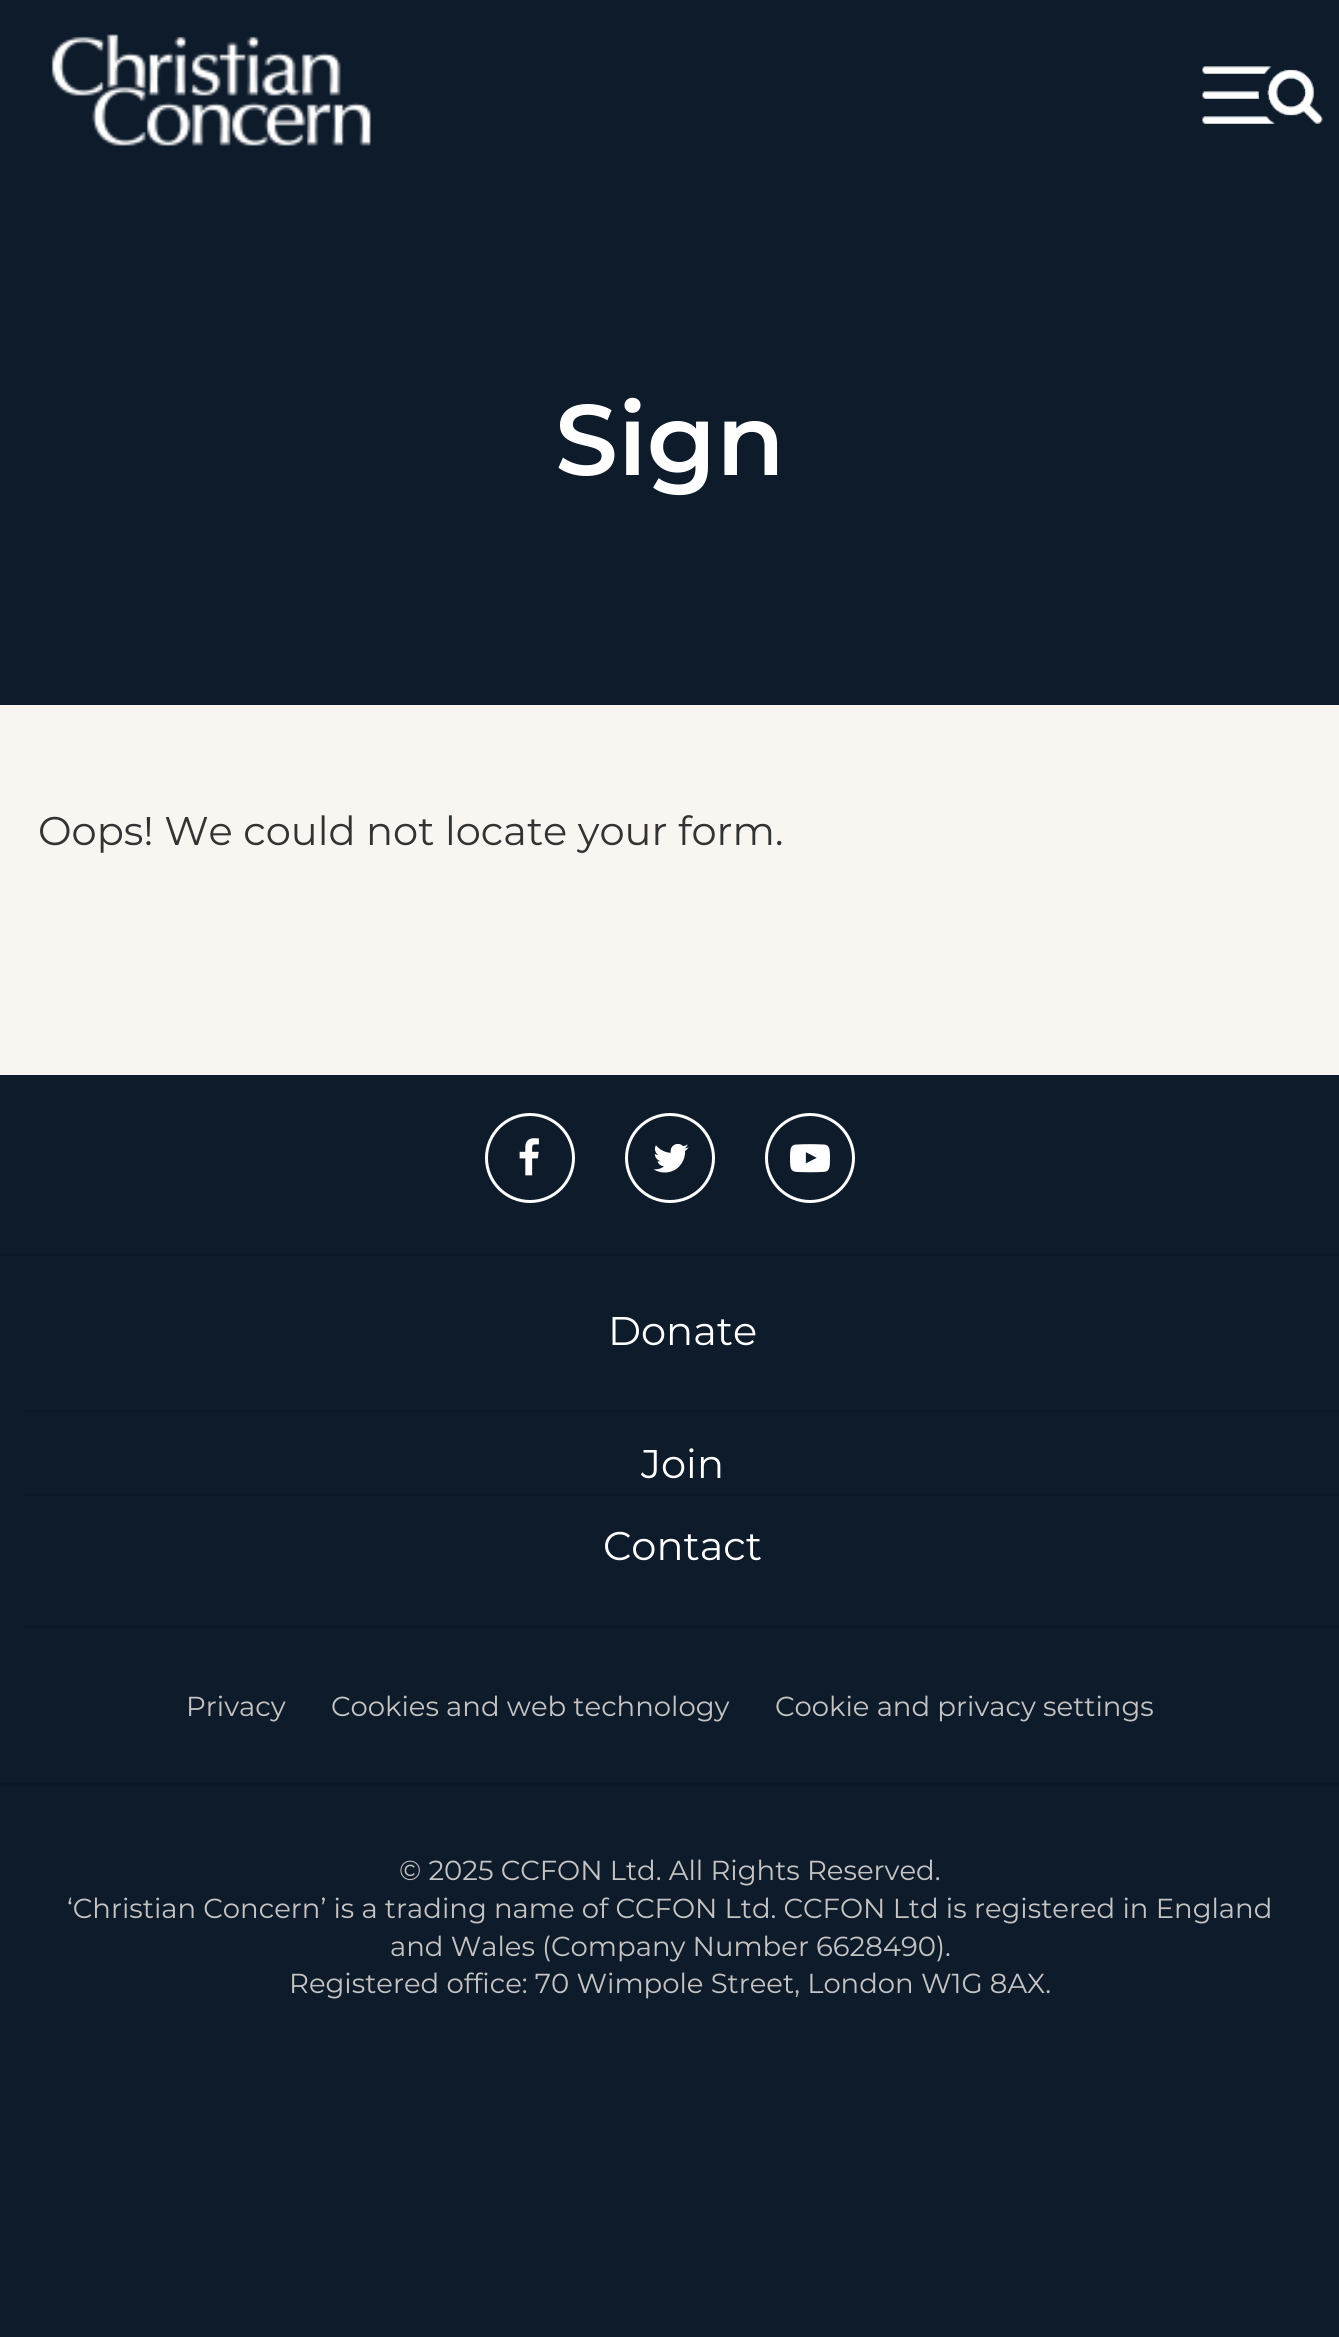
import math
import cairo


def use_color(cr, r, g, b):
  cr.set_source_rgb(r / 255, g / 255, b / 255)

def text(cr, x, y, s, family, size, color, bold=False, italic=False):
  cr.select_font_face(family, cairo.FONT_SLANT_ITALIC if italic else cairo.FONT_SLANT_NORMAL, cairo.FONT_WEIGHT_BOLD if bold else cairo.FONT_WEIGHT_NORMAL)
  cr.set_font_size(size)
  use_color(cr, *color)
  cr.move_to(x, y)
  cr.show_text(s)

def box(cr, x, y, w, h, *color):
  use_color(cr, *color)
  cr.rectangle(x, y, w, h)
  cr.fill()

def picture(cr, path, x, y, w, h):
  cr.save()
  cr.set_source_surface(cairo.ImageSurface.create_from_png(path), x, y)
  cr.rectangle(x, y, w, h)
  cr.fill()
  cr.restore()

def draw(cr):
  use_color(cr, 14, 27, 43)
  cr.paint()
  picture(cr, "img_01.png", 51, 34, 320, 112)
  picture(cr, "img_02.png", 1202, 66, 121, 58)
  box(cr, 0, 705, 1339, 370, 249, 245, 241)
  box(cr, 0, 1253, 1339, 3, 13, 24, 39)
  cr.arc(530, 1158, 43.5, 0, 2 * math.pi)
  use_color(cr, 255, 255, 255)
  cr.set_line_width(3)
  cr.stroke()
  picture(cr, "img_03.png", 519, 1138, 20, 38)
  cr.arc(670, 1158, 43.5, 0, 2 * math.pi)
  cr.stroke()
  picture(cr, "img_04.png", 653, 1143, 36, 30)
  cr.arc(810, 1158, 43.5, 0, 2 * math.pi)
  cr.stroke()
  picture(cr, "img_05.png", 790, 1144, 40, 29)
  box(cr, 25, 1410, 1314, 3, 13, 24, 39)
  box(cr, 25, 1493, 1314, 3, 13, 24, 39)
  box(cr, 25, 1625, 1314, 3, 13, 24, 39)
  box(cr, 0, 1783, 1339, 3, 13, 24, 39)
  text(cr, 555, 475, "Sign", "Montserrat SemiBold", 100, (255, 255, 255))
  text(cr, 38, 845, "Oops! We could not locate your form.", "Montserrat", 40, (51, 51, 51))
  text(cr, 608, 1345, "Donate", "Montserrat", 40, (255, 255, 255))
  text(cr, 641, 1478, "Join", "Montserrat", 40, (255, 255, 255))
  text(cr, 603, 1560, "Contact", "Montserrat", 40, (255, 255, 255))
  text(cr, 186, 1716, "Privacy", "Montserrat", 27.5, (197, 196, 195))
  text(cr, 331, 1716, "Cookies and web technology", "Montserrat", 27.5, (197, 196, 195))
  text(cr, 775, 1716, "Cookie and privacy settings", "Montserrat", 27.5, (197, 196, 195))
  text(cr, 399, 1880, "© 2025 CCFON Ltd. All Rights Reserved.", "Montserrat", 27.5, (197, 196, 195))
  text(cr, 67, 1918, "‘Christian Concern’ is a trading name of CCFON Ltd. CCFON Ltd is registered in England", "Montserrat", 27.5, (197, 196, 195))
  text(cr, 390, 1956, "and Wales (Company Number 6628490).", "Montserrat", 27.5, (197, 196, 195))
  text(cr, 289, 1993, "Registered office: 70 Wimpole Street, London W1G 8AX.", "Montserrat", 27.5, (197, 196, 195))


surface = cairo.ImageSurface(cairo.FORMAT_RGB24, 1339, 2337)
cr = cairo.Context(surface)
options = cairo.FontOptions()
options.set_hint_metrics(cairo.HINT_METRICS_OFF)
options.set_hint_style(cairo.HINT_STYLE_NONE)
cr.set_font_options(options)
cr.set_miter_limit(4)
draw(cr)
surface.write_to_png("out.png")
